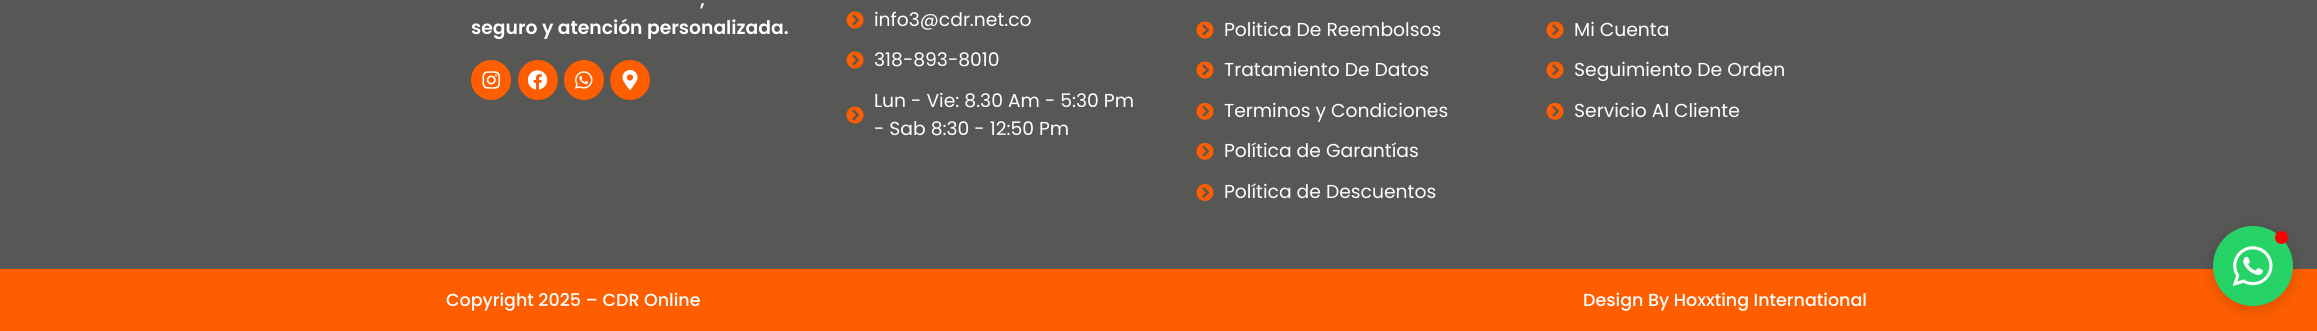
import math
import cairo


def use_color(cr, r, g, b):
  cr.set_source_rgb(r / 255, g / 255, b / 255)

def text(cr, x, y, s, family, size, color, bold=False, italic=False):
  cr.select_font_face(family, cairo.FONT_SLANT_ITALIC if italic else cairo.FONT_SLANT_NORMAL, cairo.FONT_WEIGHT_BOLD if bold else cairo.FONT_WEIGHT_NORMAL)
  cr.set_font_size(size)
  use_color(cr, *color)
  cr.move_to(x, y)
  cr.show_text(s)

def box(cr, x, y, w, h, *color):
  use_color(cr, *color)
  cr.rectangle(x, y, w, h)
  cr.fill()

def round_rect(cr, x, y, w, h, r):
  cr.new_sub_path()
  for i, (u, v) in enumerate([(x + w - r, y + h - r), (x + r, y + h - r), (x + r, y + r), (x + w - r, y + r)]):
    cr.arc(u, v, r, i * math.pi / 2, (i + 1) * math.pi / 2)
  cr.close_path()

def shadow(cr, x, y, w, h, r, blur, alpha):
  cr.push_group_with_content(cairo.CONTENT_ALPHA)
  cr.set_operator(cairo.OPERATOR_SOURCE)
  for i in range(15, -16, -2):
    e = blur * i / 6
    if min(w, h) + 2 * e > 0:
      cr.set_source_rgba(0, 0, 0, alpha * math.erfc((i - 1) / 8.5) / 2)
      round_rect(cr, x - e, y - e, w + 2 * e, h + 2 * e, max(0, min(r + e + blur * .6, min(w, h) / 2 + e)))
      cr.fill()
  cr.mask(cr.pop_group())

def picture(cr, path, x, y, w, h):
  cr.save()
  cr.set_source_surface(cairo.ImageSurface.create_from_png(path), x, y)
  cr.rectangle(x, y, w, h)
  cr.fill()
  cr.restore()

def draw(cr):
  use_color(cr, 87, 87, 86)
  cr.paint()
  use_color(cr, 255, 94, 0)
  cr.arc(491, 80, 20, 0, 2 * math.pi)
  cr.fill()
  picture(cr, "img_01.png", 482, 71, 18, 18)
  cr.arc(538, 80, 20, 0, 2 * math.pi)
  cr.fill()
  picture(cr, "img_02.png", 528, 70, 20, 20)
  cr.arc(584, 80, 20, 0, 2 * math.pi)
  cr.fill()
  picture(cr, "img_03.png", 575, 71, 18, 18)
  cr.arc(630, 80, 20, 0, 2 * math.pi)
  cr.fill()
  picture(cr, "img_04.png", 622, 70, 16, 20)
  picture(cr, "img_05.png", 846, 11, 18, 18)
  picture(cr, "img_05.png", 846, 51, 18, 18)
  picture(cr, "img_05.png", 846, 106, 18, 18)
  picture(cr, "img_05.png", 1196, 21, 18, 18)
  picture(cr, "img_05.png", 1196, 61, 18, 18)
  picture(cr, "img_06.png", 1196, 103, 18, 17)
  picture(cr, "img_06.png", 1196, 143, 18, 17)
  picture(cr, "img_07.png", 1196, 184, 18, 17)
  picture(cr, "img_05.png", 1546, 21, 18, 18)
  picture(cr, "img_05.png", 1546, 61, 18, 18)
  picture(cr, "img_06.png", 1546, 103, 18, 17)
  box(cr, 0, 269, 2317, 62, 255, 94, 0)
  use_color(cr, 0, 0, 0)
  shadow(cr, 2213, 230, 80, 80, 40, 7.5, 0.15)
  use_color(cr, 37, 211, 102)
  cr.arc(2253, 266, 40, 0, 2 * math.pi)
  cr.fill()
  use_color(cr, 255, 0, 0)
  cr.arc(2281.5, 237.5, 6.5, 0, 2 * math.pi)
  cr.fill()
  picture(cr, "img_08.png", 2233, 246, 40, 40)
  text(cr, 700, 6, ",", "Poppins SemiBold", 18.75, (255, 255, 255))
  text(cr, 471, 34, "seguro y atención personalizada.", "Poppins SemiBold", 18.75, (255, 255, 255))
  text(cr, 874, 26, "info3@cdr.net.co", "Poppins", 18.75, (255, 255, 255))
  text(cr, 874, 66, "318-893-8010", "Poppins", 18.75, (255, 255, 255))
  text(cr, 874, 107, "Lun - Vie: 8.30 Am - 5:30 Pm", "Poppins", 18.75, (255, 255, 255))
  text(cr, 874, 135, "- Sab 8:30 - 12:50 Pm", "Poppins", 18.75, (255, 255, 255))
  text(cr, 1224, 36, "Politica De Reembolsos", "Poppins", 18.75, (255, 255, 255))
  text(cr, 1224, 76, "Tratamiento De Datos", "Poppins", 18.75, (255, 255, 255))
  text(cr, 1224, 117, "Terminos y Condiciones", "Poppins", 18.75, (255, 255, 255))
  text(cr, 1224, 157, "Política de Garantías", "Poppins", 18.75, (255, 255, 255))
  text(cr, 1224, 198, "Política de Descuentos", "Poppins", 18.75, (255, 255, 255))
  text(cr, 1574, 36, "Mi Cuenta", "Poppins", 18.75, (255, 255, 255))
  text(cr, 1574, 76, "Seguimiento De Orden", "Poppins", 18.75, (255, 255, 255))
  text(cr, 1574, 117, "Servicio Al Cliente", "Poppins", 18.75, (255, 255, 255))
  text(cr, 446, 306, "Copyright 2025 – CDR Online", "Poppins Medium", 17.5, (255, 255, 255))
  text(cr, 1583, 306, "Design By Hoxxting International", "Poppins Medium", 17.5, (255, 255, 255))


surface = cairo.ImageSurface(cairo.FORMAT_RGB24, 2317, 331)
cr = cairo.Context(surface)
options = cairo.FontOptions()
options.set_hint_metrics(cairo.HINT_METRICS_OFF)
options.set_hint_style(cairo.HINT_STYLE_NONE)
cr.set_font_options(options)
cr.set_miter_limit(4)
draw(cr)
surface.write_to_png("out.png")
